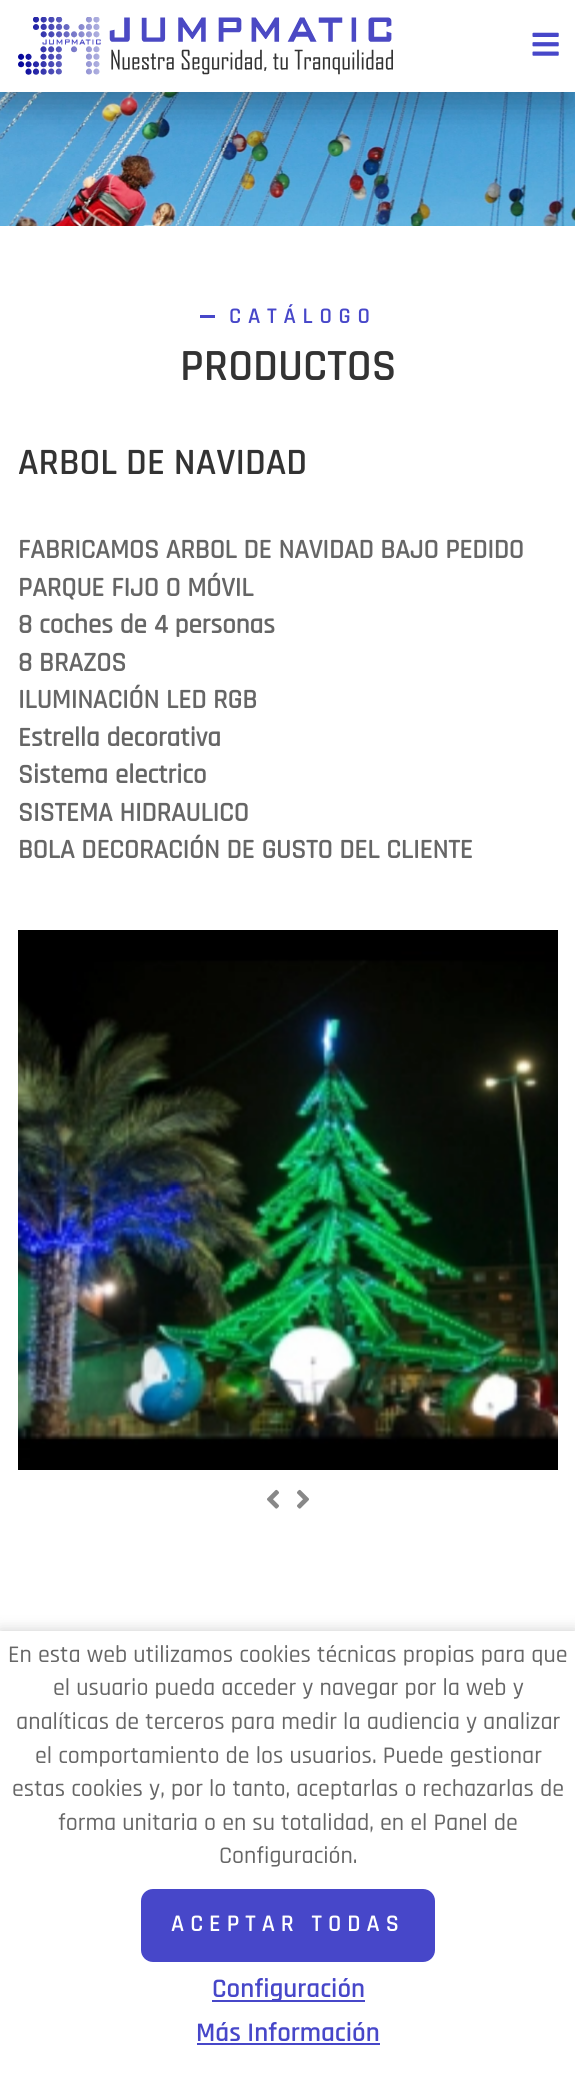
import math
import cairo


def use_color(cr, r, g, b):
  cr.set_source_rgb(r / 255, g / 255, b / 255)

def text(cr, x, y, s, family, size, color, bold=False, italic=False):
  cr.select_font_face(family, cairo.FONT_SLANT_ITALIC if italic else cairo.FONT_SLANT_NORMAL, cairo.FONT_WEIGHT_BOLD if bold else cairo.FONT_WEIGHT_NORMAL)
  cr.set_font_size(size)
  use_color(cr, *color)
  cr.move_to(x, y)
  cr.show_text(s)

def spaced_text(cr, x, y, s, letter, word):
  cr.move_to(x, y)
  for ch in s:
    cr.show_text(ch)
    cr.rel_move_to(letter + word * (ch == ' '), 0)

def box(cr, x, y, w, h, *color):
  use_color(cr, *color)
  cr.rectangle(x, y, w, h)
  cr.fill()

def round_rect(cr, x, y, w, h, r):
  cr.new_sub_path()
  for i, (u, v) in enumerate([(x + w - r, y + h - r), (x + r, y + h - r), (x + r, y + r), (x + w - r, y + r)]):
    cr.arc(u, v, r, i * math.pi / 2, (i + 1) * math.pi / 2)
  cr.close_path()

def shadow(cr, x, y, w, h, r, blur, alpha):
  cr.push_group_with_content(cairo.CONTENT_ALPHA)
  cr.set_operator(cairo.OPERATOR_SOURCE)
  for i in range(15, -16, -2):
    e = blur * i / 6
    if min(w, h) + 2 * e > 0:
      cr.set_source_rgba(0, 0, 0, alpha * math.erfc((i - 1) / 8.5) / 2)
      round_rect(cr, x - e, y - e, w + 2 * e, h + 2 * e, max(0, min(r + e + blur * .6, min(w, h) / 2 + e)))
      cr.fill()
  cr.mask(cr.pop_group())

def picture(cr, path, x, y, w, h):
  cr.save()
  cr.set_source_surface(cairo.ImageSurface.create_from_png(path), x, y)
  cr.rectangle(x, y, w, h)
  cr.fill()
  cr.restore()

def draw(cr):
  use_color(cr, 255, 255, 255)
  cr.paint()
  picture(cr, "img_03.png", 0, 92, 575, 134)
  use_color(cr, 0, 0, 0)
  shadow(cr, 0, 15, 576, 92, 0, 15, 0.25)
  box(cr, 0, 0, 575, 92, 255, 255, 255)
  picture(cr, "img_01.png", 18, 17, 375, 58)
  picture(cr, "img_02.png", 532, 32, 27, 24)
  box(cr, 200, 315, 15, 3, 71, 71, 201)
  picture(cr, "img_04.png", 18, 930, 540, 540)
  picture(cr, "img_05.png", 267, 1489, 12, 20)
  picture(cr, "img_06.png", 297, 1489, 12, 20)
  use_color(cr, 0, 0, 0)
  shadow(cr, 0, 1631, 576, 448, 0, 7.5, 0.2)
  box(cr, 0, 1631, 575, 447, 255, 255, 255)
  use_color(cr, 71, 71, 201)
  round_rect(cr, 141, 1889, 294, 73, 12)
  cr.fill()
  box(cr, 212, 2000, 153, 2, 71, 71, 201)
  box(cr, 197, 2043, 183, 2, 71, 71, 201)
  cr.select_font_face("Rajdhani SemiBold")
  cr.set_font_size(22.5)
  spaced_text(cr, 229, 323, "CATÁLOGO", 6.75, 0)
  text(cr, 180, 380, "PRODUCTOS", "Rajdhani SemiBold", 45, (51, 51, 51))
  text(cr, 18, 474, "ARBOL DE NAVIDAD", "Rajdhani SemiBold", 37.5, (51, 51, 51))
  text(cr, 18, 558, "FABRICAMOS ARBOL DE NAVIDAD BAJO PEDIDO", "Rajdhani", 27, (102, 102, 102), bold=True)
  text(cr, 18, 596, "PARQUE FIJO O MÓVIL", "Rajdhani", 27, (102, 102, 102), bold=True)
  text(cr, 18, 633, "8 coches de 4 personas", "Rajdhani", 27, (102, 102, 102), bold=True)
  text(cr, 18, 671, "8 BRAZOS", "Rajdhani", 27, (102, 102, 102), bold=True)
  text(cr, 18, 708, "ILUMINACIÓN LED RGB", "Rajdhani", 27, (102, 102, 102), bold=True)
  text(cr, 18, 746, "Estrella decorativa", "Rajdhani", 27, (102, 102, 102), bold=True)
  text(cr, 18, 783, "Sistema electrico", "Rajdhani", 27, (102, 102, 102), bold=True)
  text(cr, 18, 821, "SISTEMA HIDRAULICO", "Rajdhani", 27, (102, 102, 102), bold=True)
  text(cr, 18, 858, "BOLA DECORACIÓN DE GUSTO DEL CLIENTE", "Rajdhani", 27, (102, 102, 102), bold=True)
  text(cr, 8, 1662, "En esta web utilizamos cookies técnicas propias para que", "Rajdhani Medium", 24, (102, 102, 102))
  text(cr, 53, 1695, "el usuario pueda acceder y navegar por la web y", "Rajdhani Medium", 24, (102, 102, 102))
  text(cr, 16, 1729, "analíticas de terceros para medir la audiencia y analizar", "Rajdhani Medium", 24, (102, 102, 102))
  text(cr, 35, 1763, "el comportamiento de los usuarios. Puede gestionar", "Rajdhani Medium", 24, (102, 102, 102))
  text(cr, 12, 1796, "estas cookies y, por lo tanto, aceptarlas o rechazarlas de", "Rajdhani Medium", 24, (102, 102, 102))
  text(cr, 58, 1830, "forma unitaria o en su totalidad, en el Panel de", "Rajdhani Medium", 24, (102, 102, 102))
  text(cr, 219, 1863, "Configuración.", "Rajdhani Medium", 24, (102, 102, 102))
  cr.select_font_face("Rajdhani SemiBold")
  use_color(cr, 255, 255, 255)
  spaced_text(cr, 171, 1931, "ACEPTAR TODAS", 6, 0)
  text(cr, 212, 1997, "Configuración", "Rajdhani SemiBold", 27, (71, 71, 201))
  text(cr, 196, 2041, "Más Información", "Rajdhani SemiBold", 27, (71, 71, 201))


surface = cairo.ImageSurface(cairo.FORMAT_RGB24, 575, 2078)
cr = cairo.Context(surface)
options = cairo.FontOptions()
options.set_hint_metrics(cairo.HINT_METRICS_OFF)
options.set_hint_style(cairo.HINT_STYLE_NONE)
cr.set_font_options(options)
cr.set_miter_limit(4)
draw(cr)
surface.write_to_png("out.png")
